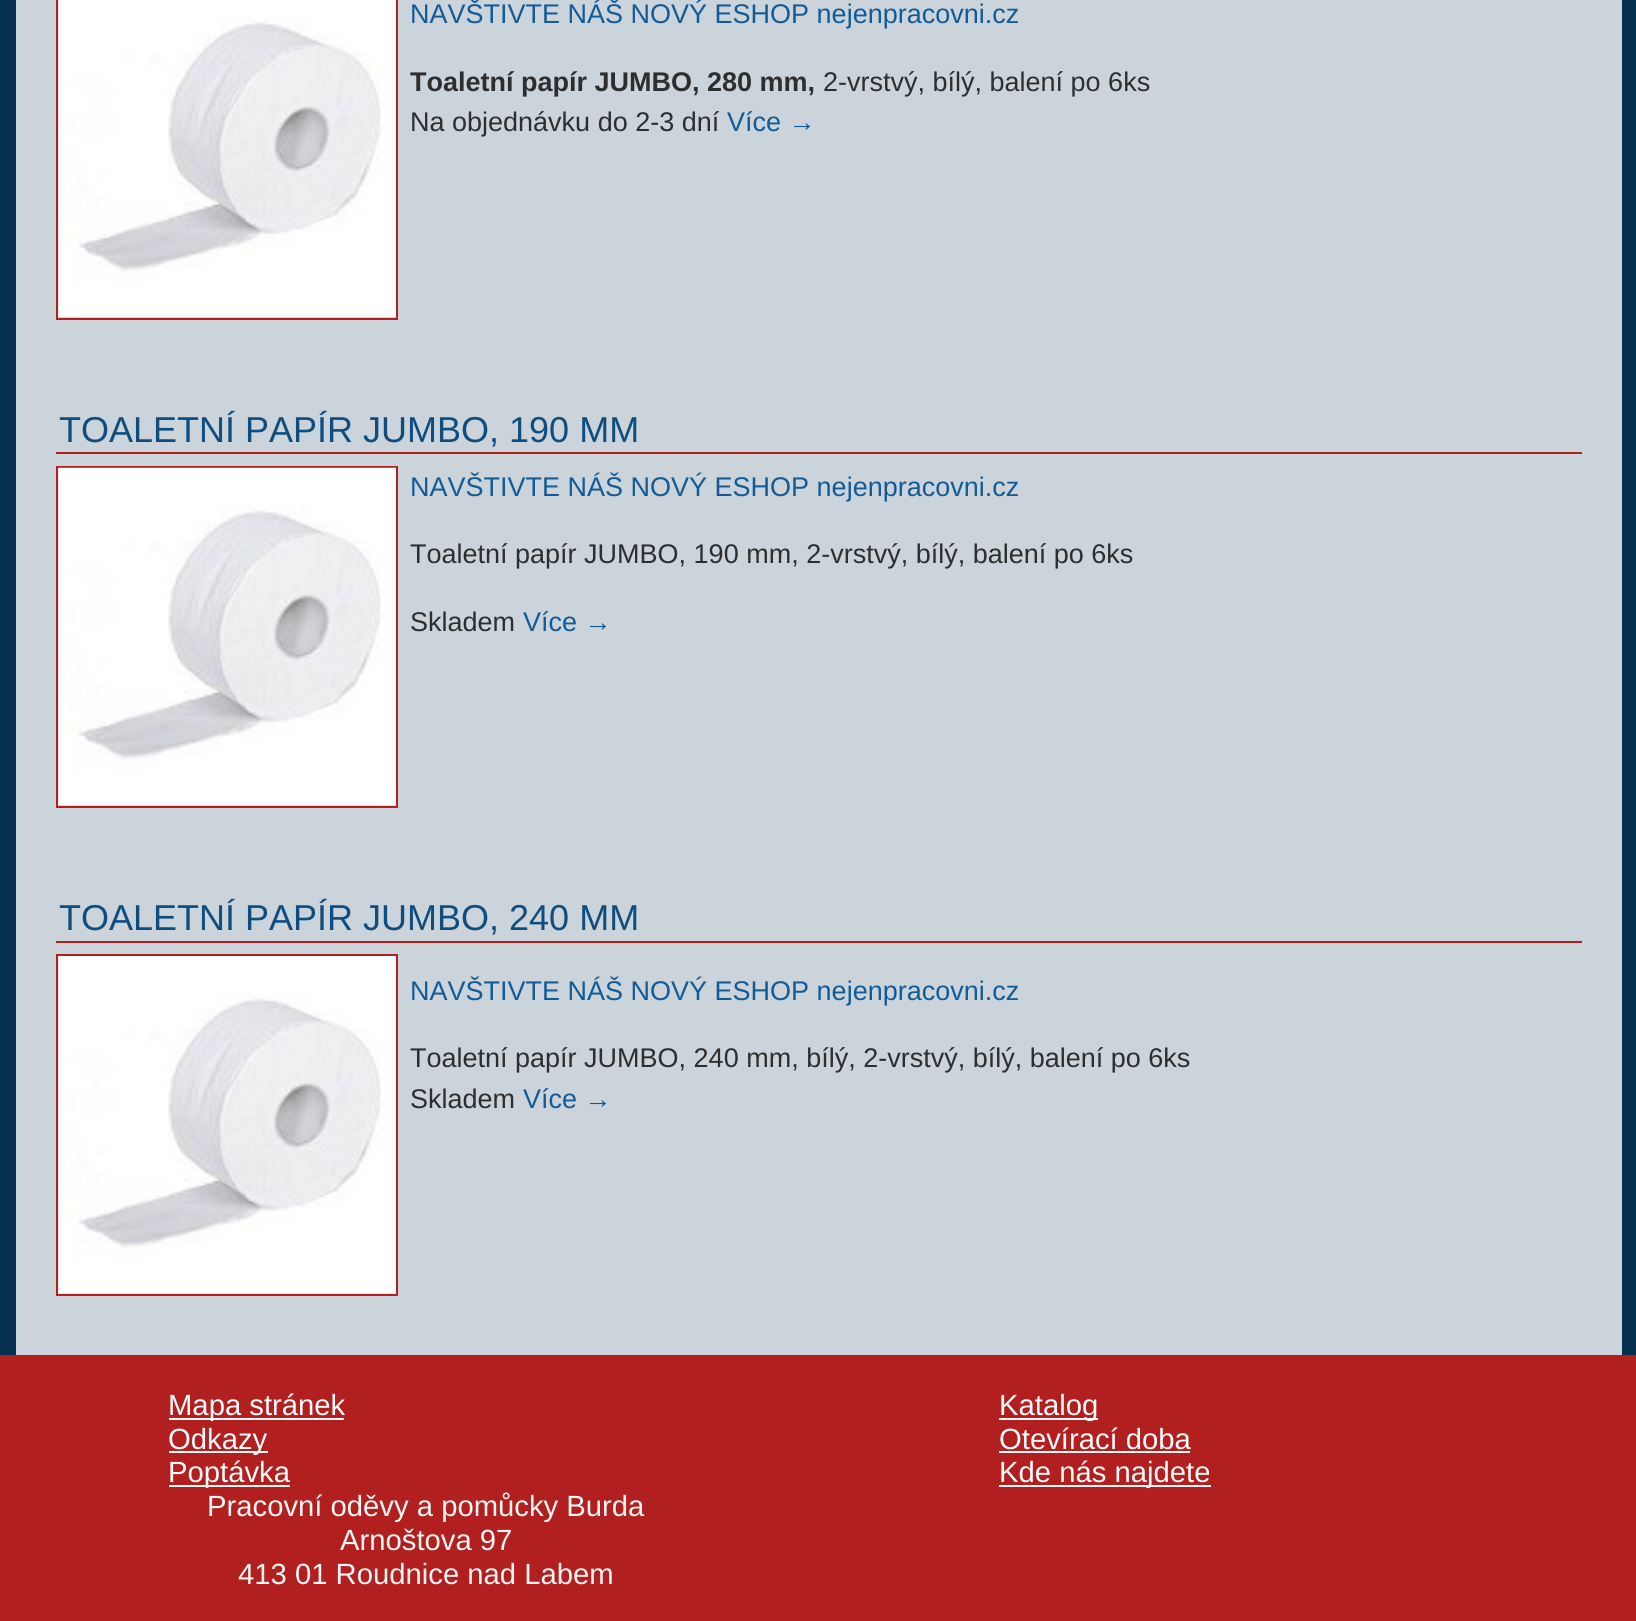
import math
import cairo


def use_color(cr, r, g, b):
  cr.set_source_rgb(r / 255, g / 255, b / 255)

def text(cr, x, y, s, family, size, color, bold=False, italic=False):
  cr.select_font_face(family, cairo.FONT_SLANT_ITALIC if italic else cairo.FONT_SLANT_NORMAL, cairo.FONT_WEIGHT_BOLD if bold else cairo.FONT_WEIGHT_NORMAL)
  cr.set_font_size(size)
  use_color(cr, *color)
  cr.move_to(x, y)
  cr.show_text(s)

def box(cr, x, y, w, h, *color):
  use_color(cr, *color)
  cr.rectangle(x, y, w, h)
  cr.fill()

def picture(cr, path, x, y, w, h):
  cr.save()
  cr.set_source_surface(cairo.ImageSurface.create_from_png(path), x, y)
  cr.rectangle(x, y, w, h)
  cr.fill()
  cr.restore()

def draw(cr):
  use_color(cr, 4, 48, 78)
  cr.paint()
  cr.set_source_rgba(0.988, 0.988, 0.988, 0.8)
  cr.rectangle(16, 0, 1606, 1355)
  cr.fill()
  cr.rectangle(57, -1, 340, 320)
  use_color(cr, 178, 31, 31)
  cr.stroke()
  picture(cr, "img_01.png", 58, 0, 338, 317)
  box(cr, 56, 452, 1526, 2, 178, 31, 31)
  cr.rectangle(57, 467, 340, 340)
  cr.stroke()
  picture(cr, "img_02.png", 58, 467, 338, 339)
  box(cr, 56, 941, 1526, 2, 178, 31, 31)
  cr.rectangle(57, 955, 340, 340)
  cr.stroke()
  picture(cr, "img_03.png", 58, 956, 338, 338)
  box(cr, 0, 1355, 1636, 266, 178, 31, 31)
  box(cr, 169, 1418, 175, 2, 248, 250, 251)
  box(cr, 169, 1451, 99, 2, 248, 250, 251)
  box(cr, 169, 1485, 121, 2, 248, 250, 251)
  box(cr, 999, 1418, 99, 2, 248, 250, 251)
  box(cr, 999, 1451, 191, 2, 248, 250, 251)
  box(cr, 999, 1485, 212, 2, 248, 250, 251)
  text(cr, 410, 23, "NAVŠTIVTE NÁŠ NOVÝ ESHOP nejenpracovni.cz", "Liberation Sans", 27, (19, 91, 150))
  text(cr, 410, 91, "Toaletní papír JUMBO, 280 mm,", "Liberation Sans", 27, (46, 46, 46), bold=True)
  text(cr, 823, 91, "2-vrstvý, bílý, balení po 6ks", "Liberation Sans", 27, (46, 46, 46))
  text(cr, 410, 131, "Na objednávku do 2-3 dní", "Liberation Sans", 27, (46, 46, 46))
  text(cr, 727, 131, "Více →", "Liberation Sans", 27, (19, 91, 150))
  text(cr, 59, 442, "TOALETNÍ PAPÍR JUMBO, 190 MM", "Liberation Sans", 36, (16, 77, 127))
  text(cr, 410, 496, "NAVŠTIVTE NÁŠ NOVÝ ESHOP nejenpracovni.cz", "Liberation Sans", 27, (19, 91, 150))
  text(cr, 410, 563, "Toaletní papír JUMBO, 190 mm, 2-vrstvý, bílý, balení po 6ks", "Liberation Sans", 27, (46, 46, 46))
  text(cr, 410, 631, "Skladem", "Liberation Sans", 27, (46, 46, 46))
  text(cr, 523, 631, "Více →", "Liberation Sans", 27, (19, 91, 150))
  text(cr, 59, 930, "TOALETNÍ PAPÍR JUMBO, 240 MM", "Liberation Sans", 36, (16, 77, 127))
  text(cr, 410, 1000, "NAVŠTIVTE NÁŠ NOVÝ ESHOP nejenpracovni.cz", "Liberation Sans", 27, (19, 91, 150))
  text(cr, 410, 1067, "Toaletní papír JUMBO, 240 mm, bílý, 2-vrstvý, bílý, balení po 6ks", "Liberation Sans", 27, (46, 46, 46))
  text(cr, 410, 1108, "Skladem", "Liberation Sans", 27, (46, 46, 46))
  text(cr, 523, 1108, "Více →", "Liberation Sans", 27, (19, 91, 150))
  text(cr, 168, 1415, "Mapa stránek", "Liberation Sans", 29.25, (248, 250, 251))
  text(cr, 168, 1449, "Odkazy", "Liberation Sans", 29.25, (248, 250, 251))
  text(cr, 168, 1482, "Poptávka", "Liberation Sans", 29.25, (248, 250, 251))
  text(cr, 999, 1415, "Katalog", "Liberation Sans", 29.25, (248, 250, 251))
  text(cr, 999, 1449, "Otevírací doba", "Liberation Sans", 29.25, (248, 250, 251))
  text(cr, 999, 1482, "Kde nás najdete", "Liberation Sans", 29.25, (248, 250, 251))
  text(cr, 207, 1516, "Pracovní oděvy a pomůcky Burda", "Liberation Sans", 29.25, (245, 245, 245))
  text(cr, 340, 1550, "Arnoštova 97", "Liberation Sans", 29.25, (245, 245, 245))
  text(cr, 238, 1584, "413 01 Roudnice nad Labem", "Liberation Sans", 29.25, (245, 245, 245))


surface = cairo.ImageSurface(cairo.FORMAT_RGB24, 1636, 1621)
cr = cairo.Context(surface)
options = cairo.FontOptions()
options.set_hint_metrics(cairo.HINT_METRICS_OFF)
options.set_hint_style(cairo.HINT_STYLE_NONE)
cr.set_font_options(options)
cr.set_miter_limit(4)
draw(cr)
surface.write_to_png("out.png")
